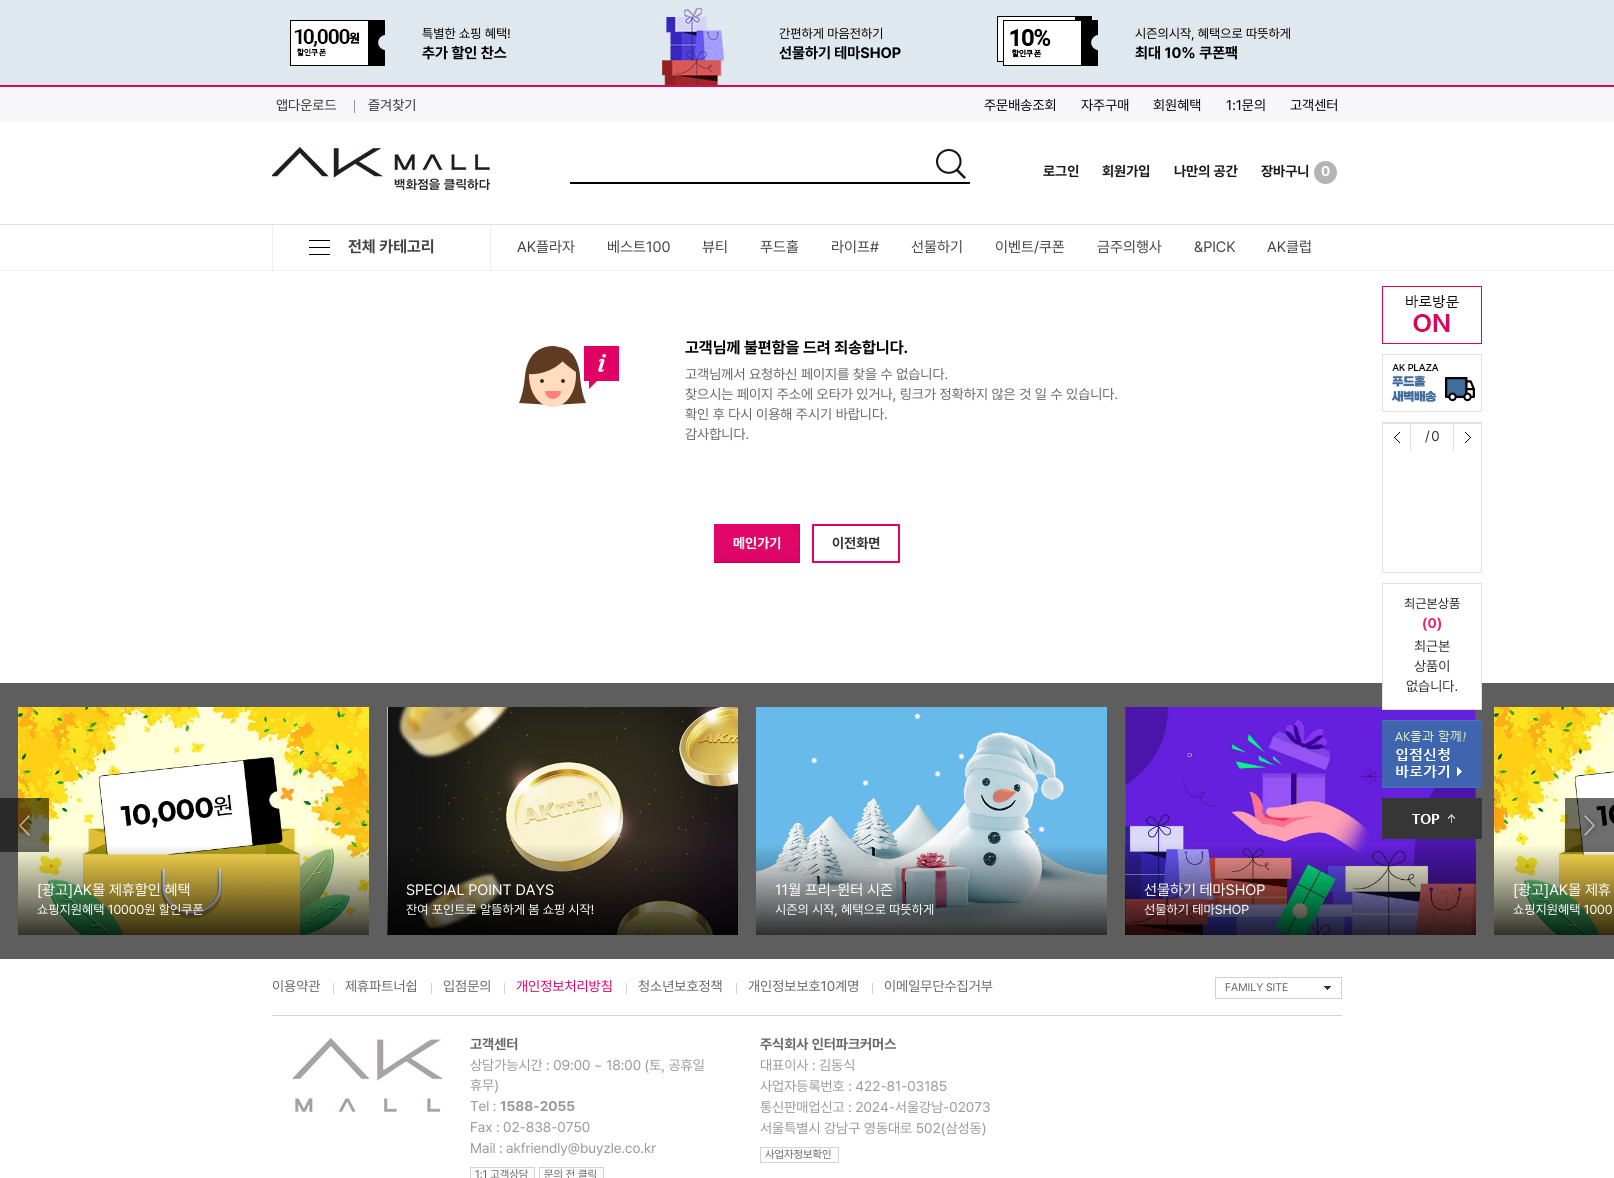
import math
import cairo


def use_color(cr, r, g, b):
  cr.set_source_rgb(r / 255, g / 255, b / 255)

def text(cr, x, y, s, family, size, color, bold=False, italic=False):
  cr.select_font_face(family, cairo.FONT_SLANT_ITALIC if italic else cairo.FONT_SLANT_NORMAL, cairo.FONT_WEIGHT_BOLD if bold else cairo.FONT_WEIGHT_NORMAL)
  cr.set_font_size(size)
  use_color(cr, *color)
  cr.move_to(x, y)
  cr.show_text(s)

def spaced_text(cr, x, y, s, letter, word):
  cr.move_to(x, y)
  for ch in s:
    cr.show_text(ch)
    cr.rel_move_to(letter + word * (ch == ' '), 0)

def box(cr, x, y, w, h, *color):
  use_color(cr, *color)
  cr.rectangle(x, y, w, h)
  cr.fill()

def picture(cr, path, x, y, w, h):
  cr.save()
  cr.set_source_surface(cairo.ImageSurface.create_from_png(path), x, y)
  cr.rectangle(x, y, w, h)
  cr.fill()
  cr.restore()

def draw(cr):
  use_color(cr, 255, 255, 255)
  cr.paint()
  box(cr, 0, 270, 1614, 1, 238, 238, 238)
  box(cr, 0, 0, 1614, 85, 224, 232, 239)
  picture(cr, "img_01.png", 288, 16, 104, 56)
  picture(cr, "img_02.png", 661, 8, 64, 77)
  picture(cr, "img_03.png", 993, 16, 112, 56)
  box(cr, 0, 87, 1614, 35, 247, 247, 249)
  box(cr, 0, 85, 1614, 2, 222, 4, 91)
  box(cr, 354, 100, 1, 13, 149, 149, 150)
  picture(cr, "img_04.png", 272, 147, 218, 43)
  box(cr, 570, 182, 400, 2, 0, 0, 0)
  picture(cr, "img_05.png", 936, 149, 30, 30)
  use_color(cr, 180, 180, 180)
  cr.arc(1325.5, 172.5, 11.5, 0, 2 * math.pi)
  cr.fill()
  box(cr, 0, 224, 1614, 1, 224, 225, 229)
  box(cr, 490, 225, 1, 45, 238, 238, 238)
  box(cr, 272, 225, 1, 45, 238, 238, 238)
  picture(cr, "img_06.png", 309, 240, 21, 15)
  picture(cr, "img_07.png", 519, 346, 100, 61)
  picture(cr, "img_08.png", 715, 525, 84, 37)
  box(cr, 714, 524, 86, 1, 226, 3, 103)
  box(cr, 799, 524, 1, 39, 198, 5, 93)
  box(cr, 714, 562, 86, 1, 183, 2, 84)
  box(cr, 714, 524, 1, 39, 226, 3, 103)
  cr.rectangle(813, 525, 86, 37)
  use_color(cr, 226, 1, 102)
  cr.stroke()
  picture(cr, "img_09.png", 1382, 286, 100, 58)
  picture(cr, "img_10.png", 1382, 354, 100, 58)
  cr.rectangle(1382.5, 422.5, 99, 150)
  use_color(cr, 223, 223, 223)
  cr.set_line_width(1)
  cr.stroke()
  box(cr, 1383, 423, 98, 1, 223, 223, 223)
  box(cr, 1453, 424, 1, 27, 223, 223, 223)
  box(cr, 1410, 424, 1, 27, 223, 223, 223)
  picture(cr, "img_11.png", 1394, 432, 6, 11)
  picture(cr, "img_12.png", 1465, 432, 6, 11)
  box(cr, 0, 683, 1614, 276, 94, 94, 94)
  picture(cr, "img_20.png", 1125, 707, 351, 228)
  box(cr, 1383, 683, 98, 26, 255, 255, 255)
  cr.rectangle(1382.5, 583.5, 99, 126)
  use_color(cr, 224, 224, 224)
  cr.stroke()
  picture(cr, "img_13.png", 1382, 720, 100, 68)
  picture(cr, "img_14.png", 1382, 798, 100, 41)
  picture(cr, "img_17.png", 18, 707, 351, 228)
  cr.set_source_rgba(0, 0, 0, 0.57)
  cr.rectangle(0, 798, 49, 54)
  cr.fill()
  picture(cr, "img_15.png", 18, 814, 14, 23)
  picture(cr, "img_21.png", 1494, 707, 120, 228)
  cr.rectangle(1565, 798, 49, 54)
  cr.fill()
  picture(cr, "img_16.png", 1582, 814, 16, 23)
  picture(cr, "img_18.png", 387, 707, 351, 228)
  picture(cr, "img_19.png", 756, 707, 351, 228)
  box(cr, 333, 983, 1, 11, 210, 210, 210)
  box(cr, 431, 983, 1, 11, 210, 210, 210)
  box(cr, 504, 983, 1, 11, 210, 210, 210)
  box(cr, 626, 983, 1, 11, 210, 210, 210)
  box(cr, 736, 983, 1, 11, 210, 210, 210)
  box(cr, 872, 983, 1, 11, 210, 210, 210)
  cr.rectangle(1215.5, 977.5, 126, 21)
  cr.stroke()
  picture(cr, "img_22.png", 1324, 986, 7, 4)
  box(cr, 272, 1015, 1070, 1, 210, 210, 210)
  picture(cr, "img_23.png", 291, 1037, 152, 75)
  use_color(cr, 252, 252, 252)
  cr.rectangle(470.5, 1167.5, 64, 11)
  cr.fill_preserve()
  use_color(cr, 210, 210, 210)
  cr.stroke()
  use_color(cr, 252, 252, 252)
  cr.rectangle(539.5, 1167.5, 64, 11)
  cr.fill_preserve()
  use_color(cr, 210, 210, 210)
  cr.stroke()
  use_color(cr, 252, 252, 252)
  cr.rectangle(760.5, 1147.5, 78, 15)
  cr.fill_preserve()
  use_color(cr, 210, 210, 210)
  cr.stroke()
  text(cr, 422, 38, "특별한 쇼핑 혜택!", "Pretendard", 13, (0, 0, 0))
  text(cr, 422, 58, "추가 할인 찬스", "Pretendard", 15, (0, 0, 0), bold=True)
  text(cr, 779, 38, "간편하게 마음전하기", "Pretendard", 13, (0, 0, 0))
  text(cr, 779, 58, "선물하기 테마SHOP", "Pretendard", 15, (0, 0, 0), bold=True)
  text(cr, 1135, 38, "시즌의시작, 혜택으로 따뜻하게", "Pretendard", 13, (0, 0, 0))
  text(cr, 1135, 58, "최대 10% 쿠폰팩", "Pretendard", 15, (0, 0, 0), bold=True)
  text(cr, 276, 110, "앱다운로드", "Pretendard", 14, (51, 51, 51))
  text(cr, 368, 110, "즐겨찾기", "Pretendard", 14, (51, 51, 51))
  text(cr, 984, 110, "주문배송조회", "Pretendard", 14, (0, 0, 0))
  text(cr, 1081, 110, "자주구매", "Pretendard", 14, (0, 0, 0))
  text(cr, 1153, 110, "회원혜택", "Pretendard", 14, (0, 0, 0))
  text(cr, 1226, 110, "1:1문의", "Pretendard", 14, (0, 0, 0))
  text(cr, 1290, 110, "고객센터", "Pretendard", 14, (0, 0, 0))
  text(cr, 1043, 176, "로그인", "Pretendard", 14, (25, 25, 25), bold=True)
  text(cr, 1102, 176, "회원가입", "Pretendard", 14, (25, 25, 25), bold=True)
  text(cr, 1174, 176, "나만의 공간", "Pretendard", 14, (25, 25, 25), bold=True)
  text(cr, 1261, 176, "장바구니", "Pretendard", 14, (25, 25, 25), bold=True)
  text(cr, 1321, 176, "0", "Pretendard", 14, (255, 255, 255), bold=True)
  text(cr, 348, 252, "전체 카테고리", "Pretendard", 16, (68, 68, 68), bold=True)
  text(cr, 517, 252, "AK플라자", "Pretendard", 15, (68, 68, 68))
  text(cr, 607, 252, "베스트100", "Pretendard", 15, (68, 68, 68))
  text(cr, 702, 252, "뷰티", "Pretendard", 15, (68, 68, 68))
  text(cr, 760, 252, "푸드홀", "Pretendard", 15, (68, 68, 68))
  text(cr, 831, 252, "라이프#", "Pretendard", 15, (68, 68, 68))
  text(cr, 911, 252, "선물하기", "Pretendard", 15, (68, 68, 68))
  text(cr, 995, 252, "이벤트/쿠폰", "Pretendard", 15, (68, 68, 68))
  text(cr, 1097, 252, "금주의행사", "Pretendard", 15, (68, 68, 68))
  text(cr, 1194, 252, "&PICK", "Pretendard", 15, (68, 68, 68))
  text(cr, 1267, 252, "AK클럽", "Pretendard", 15, (68, 68, 68))
  text(cr, 685, 353, "고객님께 불편함을 드려 죄송합니다.", "Pretendard", 16, (0, 0, 0), bold=True)
  text(cr, 685, 379, "고객님께서 요청하신 페이지를 찾을 수 없습니다.", "Pretendard", 14, (102, 102, 102))
  text(cr, 685, 399, "찾으시는 페이지 주소에 오타가 있거나, 링크가 정확하지 않은 것 일 수 있습니다.", "Pretendard", 14, (102, 102, 102))
  text(cr, 685, 419, "확인 후 다시 이용해 주시기 바랍니다.", "Pretendard", 14, (102, 102, 102))
  text(cr, 685, 439, "감사합니다.", "Pretendard", 14, (102, 102, 102))
  text(cr, 733, 548, "메인가기", "Pretendard", 14, (255, 255, 255), bold=True)
  text(cr, 832, 548, "이전화면", "Pretendard", 14, (51, 51, 51), bold=True)
  cr.select_font_face("Pretendard")
  spaced_text(cr, 1425, 441, "/ 0", -1, 0)
  text(cr, 1404, 608, "최근본상품", "Pretendard", 13, (38, 38, 38))
  text(cr, 1422, 628, "(0)", "Pretendard", 14, (232, 39, 116), bold=True)
  text(cr, 1414, 651, "최근본", "Pretendard", 14, (51, 51, 51))
  text(cr, 1414, 671, "상품이", "Pretendard", 14, (51, 51, 51))
  text(cr, 1406, 691, "없습니다.", "Pretendard", 14, (51, 51, 51))
  text(cr, 37, 895, "[광고]AK몰 제휴할인 혜택", "Pretendard", 15, (255, 255, 255))
  text(cr, 37, 914, "쇼핑지원혜택 10000원 할인쿠폰", "Pretendard", 13, (255, 255, 255))
  text(cr, 406, 895, "SPECIAL POINT DAYS", "Pretendard", 15, (255, 255, 255))
  text(cr, 406, 914, "잔여 포인트로 알뜰하게 봄 쇼핑 시작!", "Pretendard", 13, (255, 255, 255))
  text(cr, 775, 895, "11월 프리-윈터 시즌", "Pretendard", 15, (255, 255, 255))
  text(cr, 775, 914, "시즌의 시작, 혜택으로 따뜻하게", "Pretendard", 13, (255, 255, 255))
  text(cr, 1144, 895, "선물하기 테마SHOP", "Pretendard", 15, (255, 255, 255))
  text(cr, 1144, 914, "선물하기 테마SHOP", "Pretendard", 13, (255, 255, 255))
  text(cr, 1513, 895, "[광고]AK몰 제휴", "Pretendard", 15, (255, 255, 255))
  text(cr, 1513, 914, "쇼핑지원혜택 1000", "Pretendard", 13, (255, 255, 255))
  text(cr, 272, 991, "이용약관", "Pretendard", 14, (102, 102, 102))
  text(cr, 345, 991, "제휴파트너쉽", "Pretendard", 14, (102, 102, 102))
  text(cr, 443, 991, "입점문의", "Pretendard", 14, (102, 102, 102))
  text(cr, 516, 991, "개인정보처리방침", "Pretendard", 14, (226, 1, 103))
  text(cr, 638, 991, "청소년보호정책", "Pretendard", 14, (102, 102, 102))
  text(cr, 748, 991, "개인정보보호10계명", "Pretendard", 14, (102, 102, 102))
  text(cr, 884, 991, "이메일무단수집거부", "Pretendard", 14, (102, 102, 102))
  text(cr, 1225, 991, "FAMILY SITE", "Pretendard", 11, (102, 102, 102))
  text(cr, 470, 1049, "고객센터", "Pretendard", 14, (102, 102, 102), bold=True)
  text(cr, 470, 1070, "상담가능시간 : 09:00 ~ 18:00 (토, 공휴일", "Pretendard", 14, (153, 153, 153))
  text(cr, 470, 1090, "휴무)", "Pretendard", 14, (153, 153, 153))
  text(cr, 470, 1111, "Tel :", "Pretendard", 14, (153, 153, 153))
  text(cr, 500, 1111, "1588-2055", "Pretendard", 14, (153, 153, 153), bold=True)
  text(cr, 470, 1132, "Fax : 02-838-0750", "Pretendard", 14, (153, 153, 153))
  text(cr, 470, 1153, "Mail : akfriendly@buyzle.co.kr", "Pretendard", 14, (153, 153, 153))
  text(cr, 475, 1178, "1:1 고객상담", "Pretendard", 11, (102, 102, 102))
  text(cr, 544, 1178, "문의 전 클릭", "Pretendard", 11, (102, 102, 102))
  text(cr, 760, 1049, "주식회사 인터파크커머스", "Pretendard", 14, (102, 102, 102), bold=True)
  text(cr, 760, 1070, "대표이사 : 김동식", "Pretendard", 14, (153, 153, 153))
  text(cr, 760, 1091, "사업자등록번호 : 422-81-03185", "Pretendard", 14, (153, 153, 153))
  text(cr, 760, 1112, "통신판매업신고 : 2024-서울강남-02073", "Pretendard", 14, (153, 153, 153))
  text(cr, 760, 1133, "서울특별시 강남구 영동대로 502(삼성동)", "Pretendard", 14, (153, 153, 153))
  text(cr, 765, 1158, "사업자정보확인", "Pretendard", 11, (102, 102, 102))


surface = cairo.ImageSurface(cairo.FORMAT_RGB24, 1614, 1178)
cr = cairo.Context(surface)
options = cairo.FontOptions()
options.set_hint_metrics(cairo.HINT_METRICS_OFF)
options.set_hint_style(cairo.HINT_STYLE_NONE)
cr.set_font_options(options)
cr.set_miter_limit(4)
draw(cr)
surface.write_to_png("out.png")
